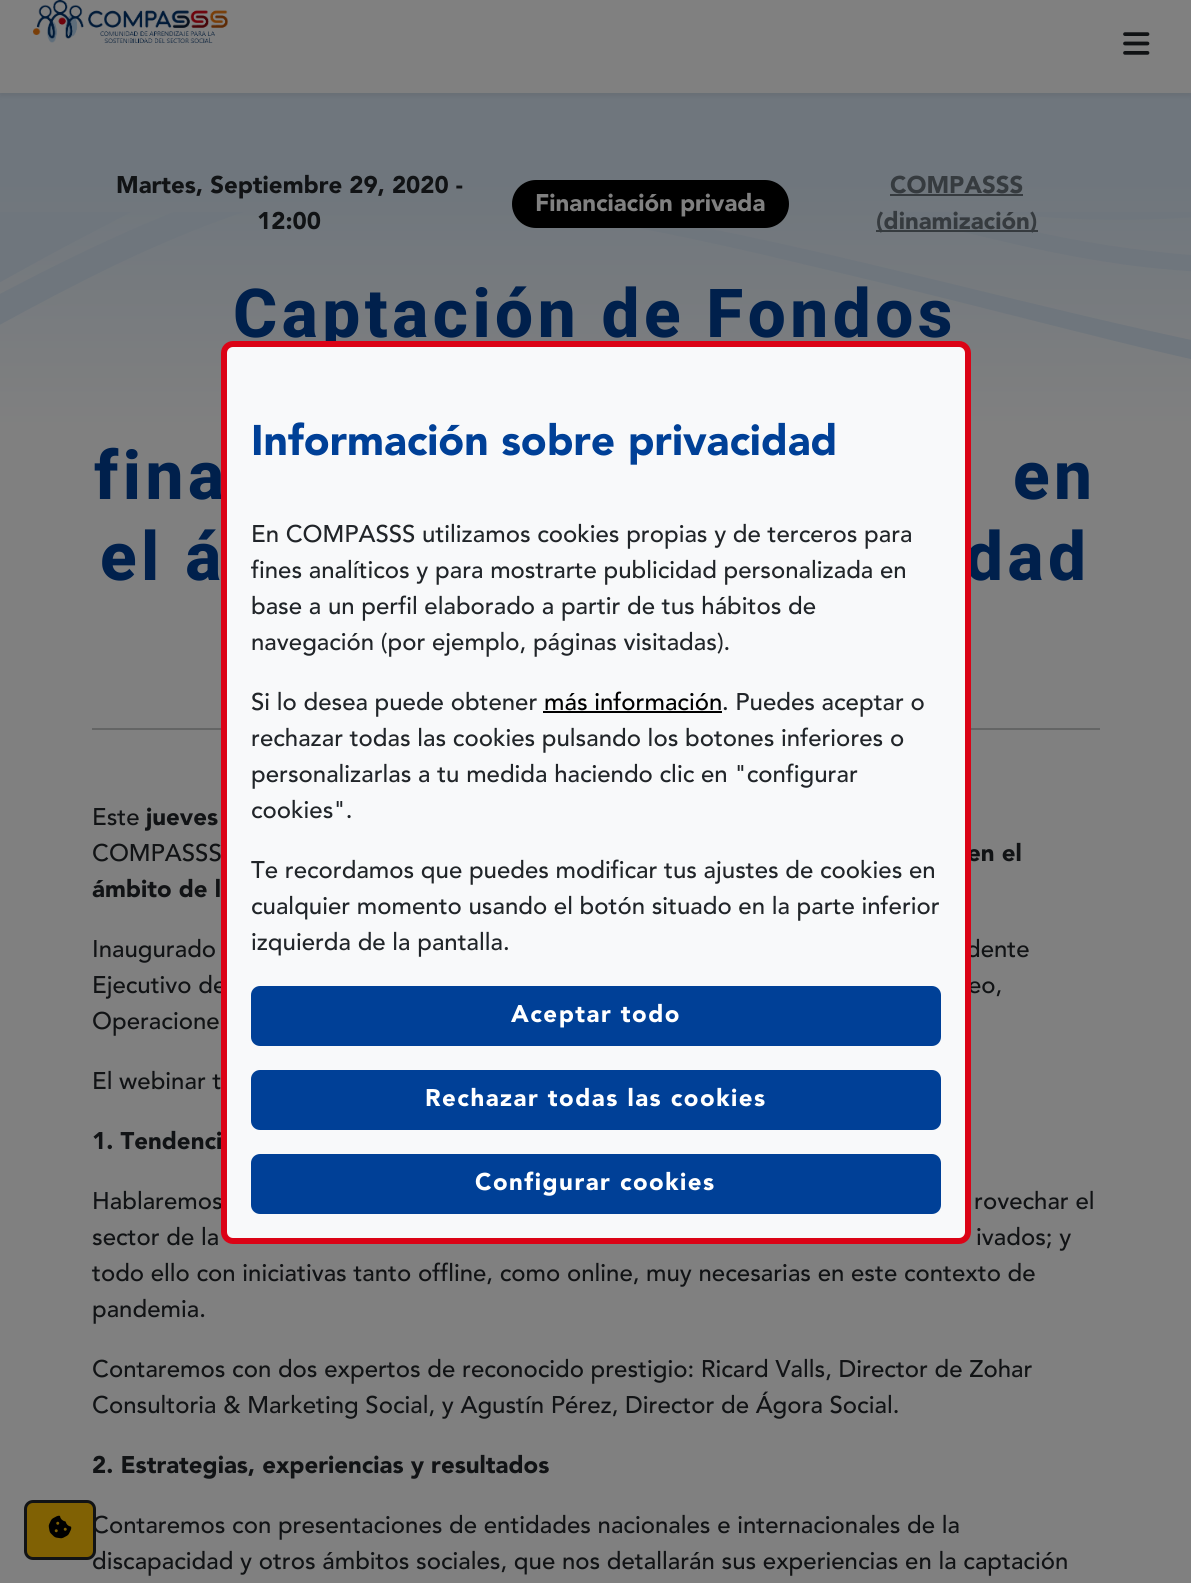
import math
import cairo


def use_color(cr, r, g, b):
  cr.set_source_rgb(r / 255, g / 255, b / 255)

def text(cr, x, y, s, family, size, color, bold=False, italic=False):
  cr.select_font_face(family, cairo.FONT_SLANT_ITALIC if italic else cairo.FONT_SLANT_NORMAL, cairo.FONT_WEIGHT_BOLD if bold else cairo.FONT_WEIGHT_NORMAL)
  cr.set_font_size(size)
  use_color(cr, *color)
  cr.move_to(x, y)
  cr.show_text(s)

def spaced_text(cr, x, y, s, letter, word):
  cr.move_to(x, y)
  for ch in s:
    cr.show_text(ch)
    cr.rel_move_to(letter + word * (ch == ' '), 0)

def box(cr, x, y, w, h, *color):
  use_color(cr, *color)
  cr.rectangle(x, y, w, h)
  cr.fill()

def round_rect(cr, x, y, w, h, r):
  cr.new_sub_path()
  for i, (u, v) in enumerate([(x + w - r, y + h - r), (x + r, y + h - r), (x + r, y + r), (x + w - r, y + r)]):
    cr.arc(u, v, r, i * math.pi / 2, (i + 1) * math.pi / 2)
  cr.close_path()

def shadow(cr, x, y, w, h, r, blur, alpha):
  cr.push_group_with_content(cairo.CONTENT_ALPHA)
  cr.set_operator(cairo.OPERATOR_SOURCE)
  for i in range(15, -16, -2):
    e = blur * i / 6
    if min(w, h) + 2 * e > 0:
      cr.set_source_rgba(0, 0, 0, alpha * math.erfc((i - 1) / 8.5) / 2)
      round_rect(cr, x - e, y - e, w + 2 * e, h + 2 * e, max(0, min(r + e + blur * .6, min(w, h) / 2 + e)))
      cr.fill()
  cr.mask(cr.pop_group())

def picture(cr, path, x, y, w, h):
  cr.save()
  cr.set_source_surface(cairo.ImageSurface.create_from_png(path), x, y)
  cr.rectangle(x, y, w, h)
  cr.fill()
  cr.restore()

def draw(cr):
  use_color(cr, 255, 255, 255)
  cr.paint()
  gradient = cairo.LinearGradient(595, 63, 596, 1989)
  gradient.add_color_stop_rgba(0.06, 0.435, 0.463, 0.49, 1)
  gradient.add_color_stop_rgba(0.19, 0.502, 0.502, 0.502, 1)
  cr.set_source(gradient)
  cr.rectangle(0, 93, 1191, 1490)
  cr.fill()
  use_color(cr, 0, 0, 0)
  shadow(cr, 0, 3, 1191, 93, 0, 3, 0.07)
  box(cr, 0, 0, 1191, 93, 128, 128, 128)
  picture(cr, "img_01.png", 33, 0, 195, 43)
  picture(cr, "img_02.png", 1123, 32, 27, 23)
  picture(cr, "img_03.png", 0, 212, 1191, 147)
  use_color(cr, 0, 0, 0)
  round_rect(cr, 512, 180, 277, 48, 24)
  cr.fill()
  box(cr, 890, 194, 133, 2, 54, 59, 63)
  box(cr, 876, 230, 162, 2, 54, 59, 63)
  box(cr, 92, 728, 1008, 2, 100, 101, 101)
  text(cr, 116, 193, "Martes, Septiembre 29, 2020 -", "Avenir Black", 24, (17, 19, 21))
  text(cr, 257, 229, "12:00", "Avenir Black", 24, (17, 19, 21))
  text(cr, 535, 211, "Financiación privada", "Avenir Black", 24, (128, 128, 128))
  text(cr, 890, 193, "COMPASSS", "Avenir Black", 24, (54, 59, 63))
  text(cr, 876, 229, "(dinamización)", "Avenir Black", 24, (54, 59, 63))
  cr.select_font_face("Roboto ExtraBold")
  cr.set_font_size(67.5)
  use_color(cr, 0, 32, 76)
  spaced_text(cr, 233, 337, "Captación de Fondos", 4.5, 0)
  spaced_text(cr, 94, 499, "fina", 4.5, 0)
  spaced_text(cr, 1013, 499, "en", 4.5, 0)
  spaced_text(cr, 100, 580, "el á", 4.5, 0)
  spaced_text(cr, 965, 580, "dad", 4.5, 0)
  text(cr, 92, 825, "Este", "Avenir Medium", 24, (17, 19, 21))
  text(cr, 146, 825, "jueves", "Avenir Black", 24, (17, 19, 21))
  text(cr, 92, 861, "COMPASSS", "Avenir Medium", 24, (17, 19, 21))
  text(cr, 967, 861, "en el", "Avenir Black", 24, (17, 19, 21))
  text(cr, 92, 897, "ámbito de l", "Avenir Black", 24, (17, 19, 21))
  text(cr, 92, 957, "Inaugurado", "Avenir Medium", 24, (17, 19, 21))
  text(cr, 966, 957, "dente", "Avenir Medium", 24, (17, 19, 21))
  text(cr, 92, 993, "Ejecutivo de", "Avenir Medium", 24, (17, 19, 21))
  text(cr, 968, 993, "eo,", "Avenir Medium", 24, (17, 19, 21))
  text(cr, 92, 1029, "Operacione", "Avenir Medium", 24, (17, 19, 21))
  text(cr, 92, 1089, "El webinar t", "Avenir Medium", 24, (17, 19, 21))
  text(cr, 92, 1149, "1. Tendenci", "Avenir Black", 24, (17, 19, 21))
  text(cr, 92, 1209, "Hablaremos", "Avenir Medium", 24, (17, 19, 21))
  text(cr, 974, 1209, "rovechar el", "Avenir Medium", 24, (17, 19, 21))
  text(cr, 92, 1245, "sector de la", "Avenir Medium", 24, (17, 19, 21))
  text(cr, 976, 1245, "ivados; y", "Avenir Medium", 24, (17, 19, 21))
  text(cr, 92, 1281, "todo ello con iniciativas tanto offline, como online, muy necesarias en este contexto de", "Avenir Medium", 24, (17, 19, 21))
  text(cr, 92, 1317, "pandemia.", "Avenir Medium", 24, (17, 19, 21))
  text(cr, 92, 1377, "Contaremos con dos expertos de reconocido prestigio: Ricard Valls, Director de Zohar", "Avenir Medium", 24, (17, 19, 21))
  text(cr, 92, 1413, "Consultoria & Marketing Social, y Agustín Pérez, Director de Ágora Social.", "Avenir Medium", 24, (17, 19, 21))
  text(cr, 92, 1473, "2. Estrategias, experiencias y resultados", "Avenir Black", 24, (17, 19, 21))
  text(cr, 92, 1533, "Contaremos con presentaciones de entidades nacionales e internacionales de la", "Avenir Medium", 24, (17, 19, 21))
  text(cr, 92, 1569, "discapacidad y otros ámbitos sociales, que nos detallarán sus experiencias en la captación", "Avenir Medium", 24, (17, 19, 21))
  use_color(cr, 248, 249, 250)
  round_rect(cr, 224, 344, 744, 897, 9)
  cr.fill_preserve()
  use_color(cr, 219, 3, 22)
  cr.set_line_width(6)
  cr.stroke()
  text(cr, 251, 455, "Información sobre privacidad", "Avenir Black", 42.5, (0, 64, 151))
  text(cr, 251, 542, "En COMPASSS utilizamos cookies propias y de terceros para", "Avenir Medium", 24, (33, 37, 41))
  text(cr, 251, 578, "fines analíticos y para mostrarte publicidad personalizada en", "Avenir Medium", 24, (33, 37, 41))
  text(cr, 251, 614, "base a un perfil elaborado a partir de tus hábitos de", "Avenir Medium", 24, (33, 37, 41))
  text(cr, 251, 650, "navegación (por ejemplo, páginas visitadas).", "Avenir Medium", 24, (33, 37, 41))
  text(cr, 251, 710, "Si lo desea puede obtener", "Avenir Medium", 24, (33, 37, 41))
  text(cr, 544, 710, "más información", "Avenir Medium", 24, (0, 0, 0))
  box(cr, 543, 711, 179, 2, 0, 0, 0)
  text(cr, 722, 710, ". Puedes aceptar o", "Avenir Medium", 24, (33, 37, 41))
  text(cr, 251, 746, "rechazar todas las cookies pulsando los botones inferiores o", "Avenir Medium", 24, (33, 37, 41))
  text(cr, 251, 782, "personalizarlas a tu medida haciendo clic en \"configurar", "Avenir Medium", 24, (33, 37, 41))
  text(cr, 251, 818, "cookies\".", "Avenir Medium", 24, (33, 37, 41))
  text(cr, 251, 878, "Te recordamos que puedes modificar tus ajustes de cookies en", "Avenir Medium", 24, (33, 37, 41))
  text(cr, 251, 914, "cualquier momento usando el botón situado en la parte inferior", "Avenir Medium", 24, (33, 37, 41))
  text(cr, 251, 950, "izquierda de la pantalla.", "Avenir Medium", 24, (33, 37, 41))
  use_color(cr, 0, 64, 151)
  round_rect(cr, 252.5, 987.5, 687, 57, 7.5)
  cr.fill_preserve()
  cr.set_line_width(3)
  cr.stroke()
  cr.select_font_face("Avenir Black")
  use_color(cr, 255, 255, 255)
  spaced_text(cr, 511, 1022, "Aceptar todo", 1.5, 0)
  use_color(cr, 0, 64, 151)
  round_rect(cr, 252.5, 1071.5, 687, 57, 7.5)
  cr.fill_preserve()
  cr.stroke()
  use_color(cr, 255, 255, 255)
  spaced_text(cr, 425, 1106, "Rechazar todas las cookies", 1.5, 0)
  use_color(cr, 0, 64, 151)
  round_rect(cr, 252.5, 1155.5, 687, 57, 7.5)
  cr.fill_preserve()
  cr.stroke()
  use_color(cr, 255, 255, 255)
  spaced_text(cr, 475, 1190, "Configurar cookies", 1.5, 0)
  use_color(cr, 128, 97, 4)
  round_rect(cr, 25.5, 1501.5, 69, 57, 7.5)
  cr.fill_preserve()
  use_color(cr, 17, 19, 21)
  cr.stroke()
  picture(cr, "img_04.png", 48, 1515, 24, 24)


surface = cairo.ImageSurface(cairo.FORMAT_RGB24, 1191, 1583)
cr = cairo.Context(surface)
options = cairo.FontOptions()
options.set_hint_metrics(cairo.HINT_METRICS_OFF)
options.set_hint_style(cairo.HINT_STYLE_NONE)
cr.set_font_options(options)
cr.set_miter_limit(4)
draw(cr)
surface.write_to_png("out.png")
